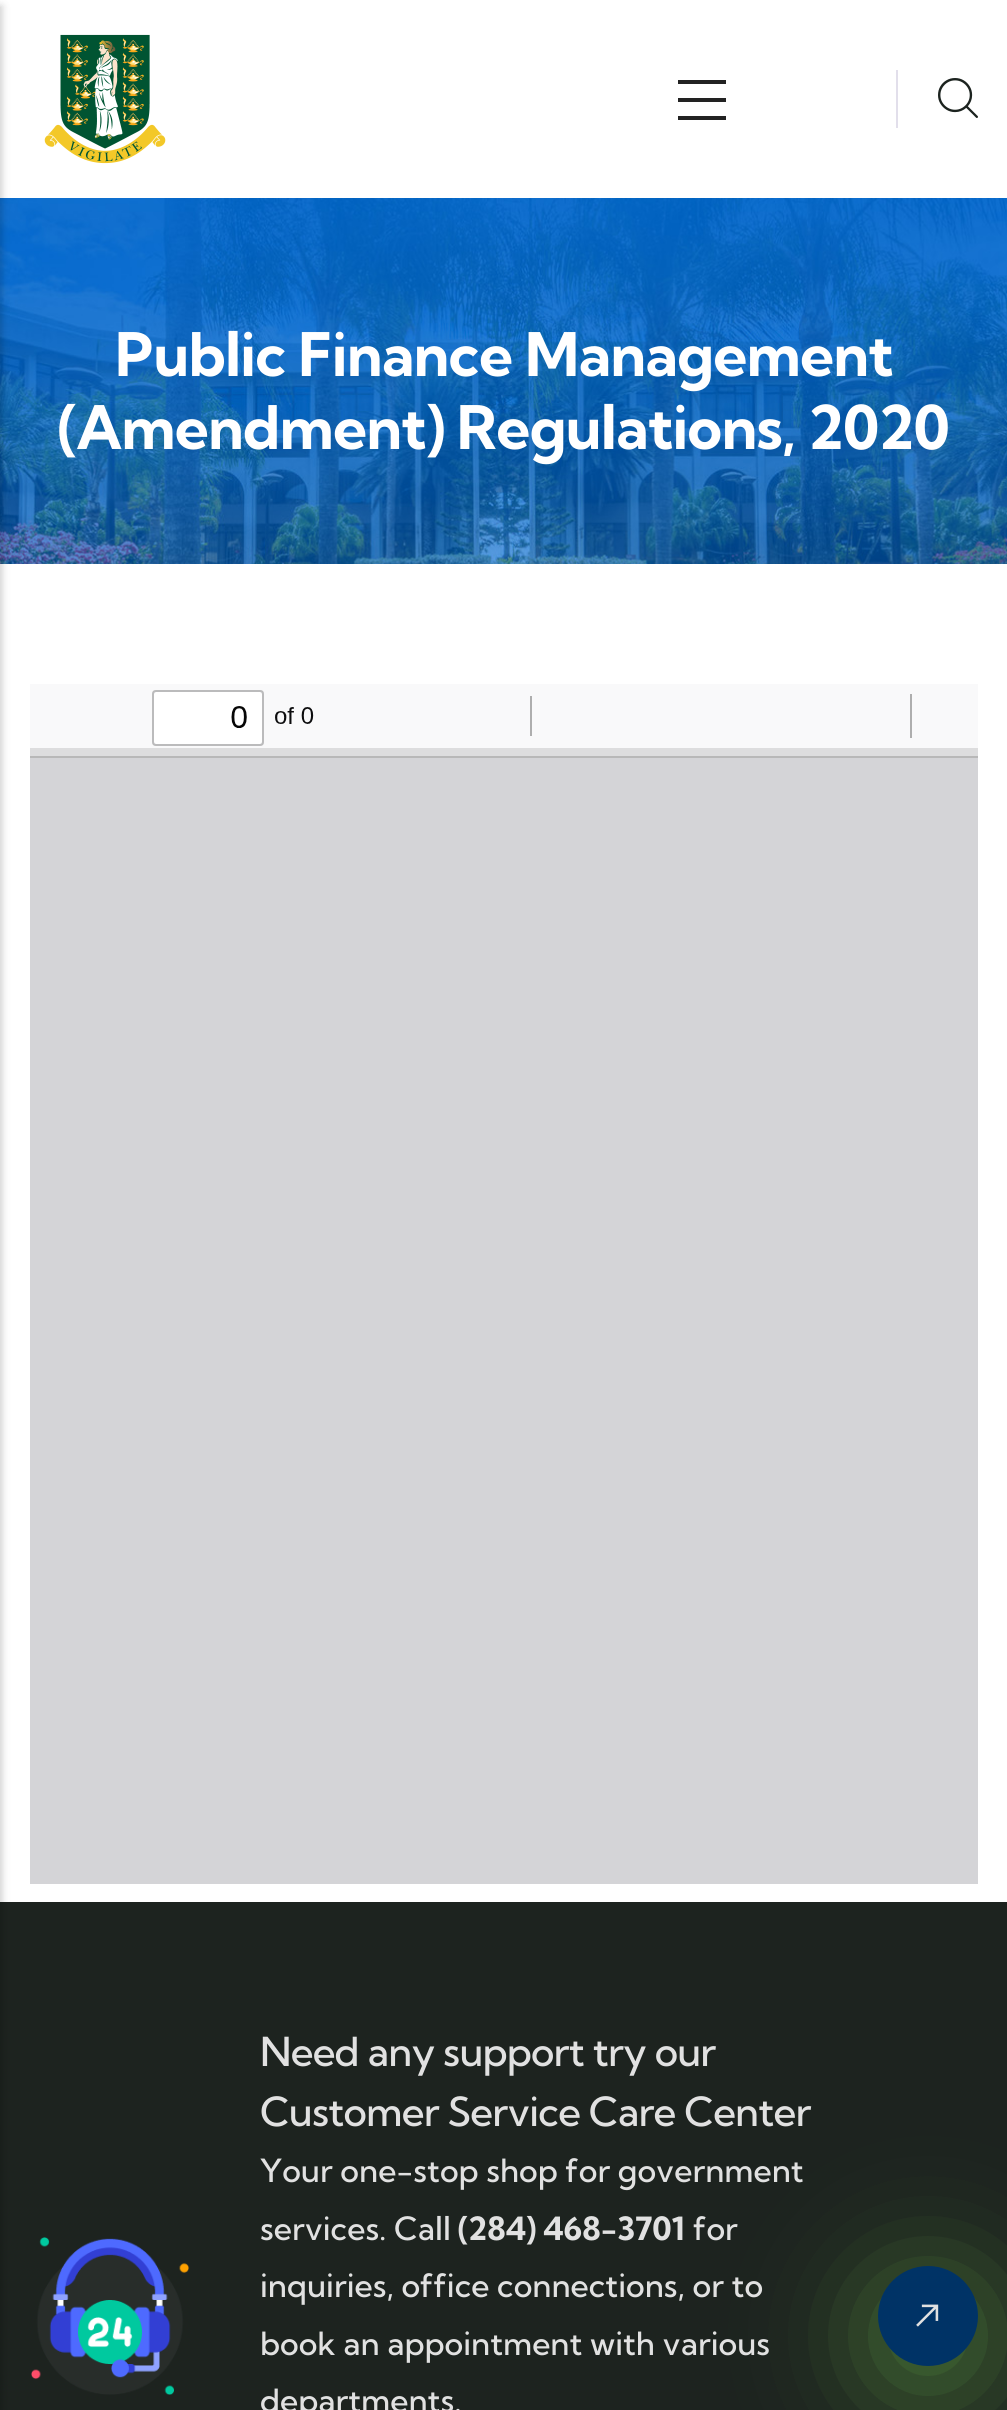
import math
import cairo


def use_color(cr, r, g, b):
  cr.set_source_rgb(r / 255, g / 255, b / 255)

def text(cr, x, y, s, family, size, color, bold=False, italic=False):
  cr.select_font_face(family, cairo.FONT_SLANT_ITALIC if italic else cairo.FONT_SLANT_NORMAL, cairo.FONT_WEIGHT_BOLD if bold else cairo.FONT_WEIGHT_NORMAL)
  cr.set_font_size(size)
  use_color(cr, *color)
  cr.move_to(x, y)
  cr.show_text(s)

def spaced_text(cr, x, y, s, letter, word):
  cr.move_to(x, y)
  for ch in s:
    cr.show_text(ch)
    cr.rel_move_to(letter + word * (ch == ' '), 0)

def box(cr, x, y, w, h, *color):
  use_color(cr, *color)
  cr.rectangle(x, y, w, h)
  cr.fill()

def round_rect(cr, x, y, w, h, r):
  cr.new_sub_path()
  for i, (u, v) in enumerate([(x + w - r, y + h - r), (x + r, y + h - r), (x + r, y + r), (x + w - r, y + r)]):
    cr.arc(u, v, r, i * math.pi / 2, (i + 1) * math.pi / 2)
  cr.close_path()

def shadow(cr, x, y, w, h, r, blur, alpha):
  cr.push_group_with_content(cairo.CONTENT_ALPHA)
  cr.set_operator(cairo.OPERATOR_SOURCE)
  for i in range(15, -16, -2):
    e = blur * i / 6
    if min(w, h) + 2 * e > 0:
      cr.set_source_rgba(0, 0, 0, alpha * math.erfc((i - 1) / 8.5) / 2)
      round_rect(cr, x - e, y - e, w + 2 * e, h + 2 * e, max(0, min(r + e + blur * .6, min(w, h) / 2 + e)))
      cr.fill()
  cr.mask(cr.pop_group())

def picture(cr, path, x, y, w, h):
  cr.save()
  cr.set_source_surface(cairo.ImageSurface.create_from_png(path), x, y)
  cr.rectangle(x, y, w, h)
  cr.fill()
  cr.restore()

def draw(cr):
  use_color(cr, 255, 255, 255)
  cr.paint()
  picture(cr, "img_03.png", 0, 198, 1007, 366)
  box(cr, 0, 1902, 1007, 508, 29, 35, 31)
  use_color(cr, 0, 0, 0)
  shadow(cr, -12, 6, 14, 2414, 0, 4, 0.2)
  box(cr, 678, 80, 48, 4, 34, 34, 34)
  box(cr, 678, 98, 48, 4, 34, 34, 34)
  box(cr, 678, 116, 48, 4, 34, 34, 34)
  box(cr, 896, 70, 2, 58, 226, 223, 235)
  picture(cr, "img_01.png", 938, 78, 40, 40)
  picture(cr, "img_02.png", 44, 34, 122, 130)
  picture(cr, "img_04.png", 30, 684, 948, 1200)
  picture(cr, "img_05.png", 31, 2237, 159, 158)
  use_color(cr, 99, 171, 69)
  shadow(cr, 878, 2286, 100, 100, 50, 60, 0.61)
  use_color(cr, 0, 51, 102)
  cr.arc(928, 2316, 50, 0, 2 * math.pi)
  cr.fill()
  picture(cr, "img_06.png", 916, 2304, 23, 23)
  cr.select_font_face("Kumbh Sans", cairo.FONT_SLANT_NORMAL, cairo.FONT_WEIGHT_BOLD)
  cr.set_font_size(60)
  use_color(cr, 255, 255, 255)
  spaced_text(cr, 115, 376, "Public Finance Management", -0.8, 0)
  spaced_text(cr, 58, 449, "(Amendment) Regulations, 2020", -0.8, 0)
  cr.select_font_face("Kumbh Sans Medium")
  cr.set_font_size(40)
  use_color(cr, 225, 225, 225)
  spaced_text(cr, 260, 2066, "Need any support try our", -0.8, 0)
  spaced_text(cr, 260, 2126, "Customer Service Care Center", -0.8, 0)
  text(cr, 260, 2182, "Your one-stop shop for government", "Kumbh Sans Medium", 32, (225, 225, 225))
  text(cr, 260, 2240, "services. Call", "Kumbh Sans Medium", 32, (225, 225, 225))
  text(cr, 458, 2240, "(284) 468-3701", "Kumbh Sans", 32, (225, 225, 225), bold=True)
  text(cr, 693, 2240, "for", "Kumbh Sans Medium", 32, (225, 225, 225))
  text(cr, 260, 2297, "inquiries, office connections, or to", "Kumbh Sans Medium", 32, (225, 225, 225))
  text(cr, 260, 2355, "book an appointment with various", "Kumbh Sans Medium", 32, (225, 225, 225))
  text(cr, 260, 2412, "departments.", "Kumbh Sans Medium", 32, (225, 225, 225))


surface = cairo.ImageSurface(cairo.FORMAT_RGB24, 1007, 2410)
cr = cairo.Context(surface)
options = cairo.FontOptions()
options.set_hint_metrics(cairo.HINT_METRICS_OFF)
options.set_hint_style(cairo.HINT_STYLE_NONE)
cr.set_font_options(options)
cr.set_miter_limit(4)
draw(cr)
surface.write_to_png("out.png")
